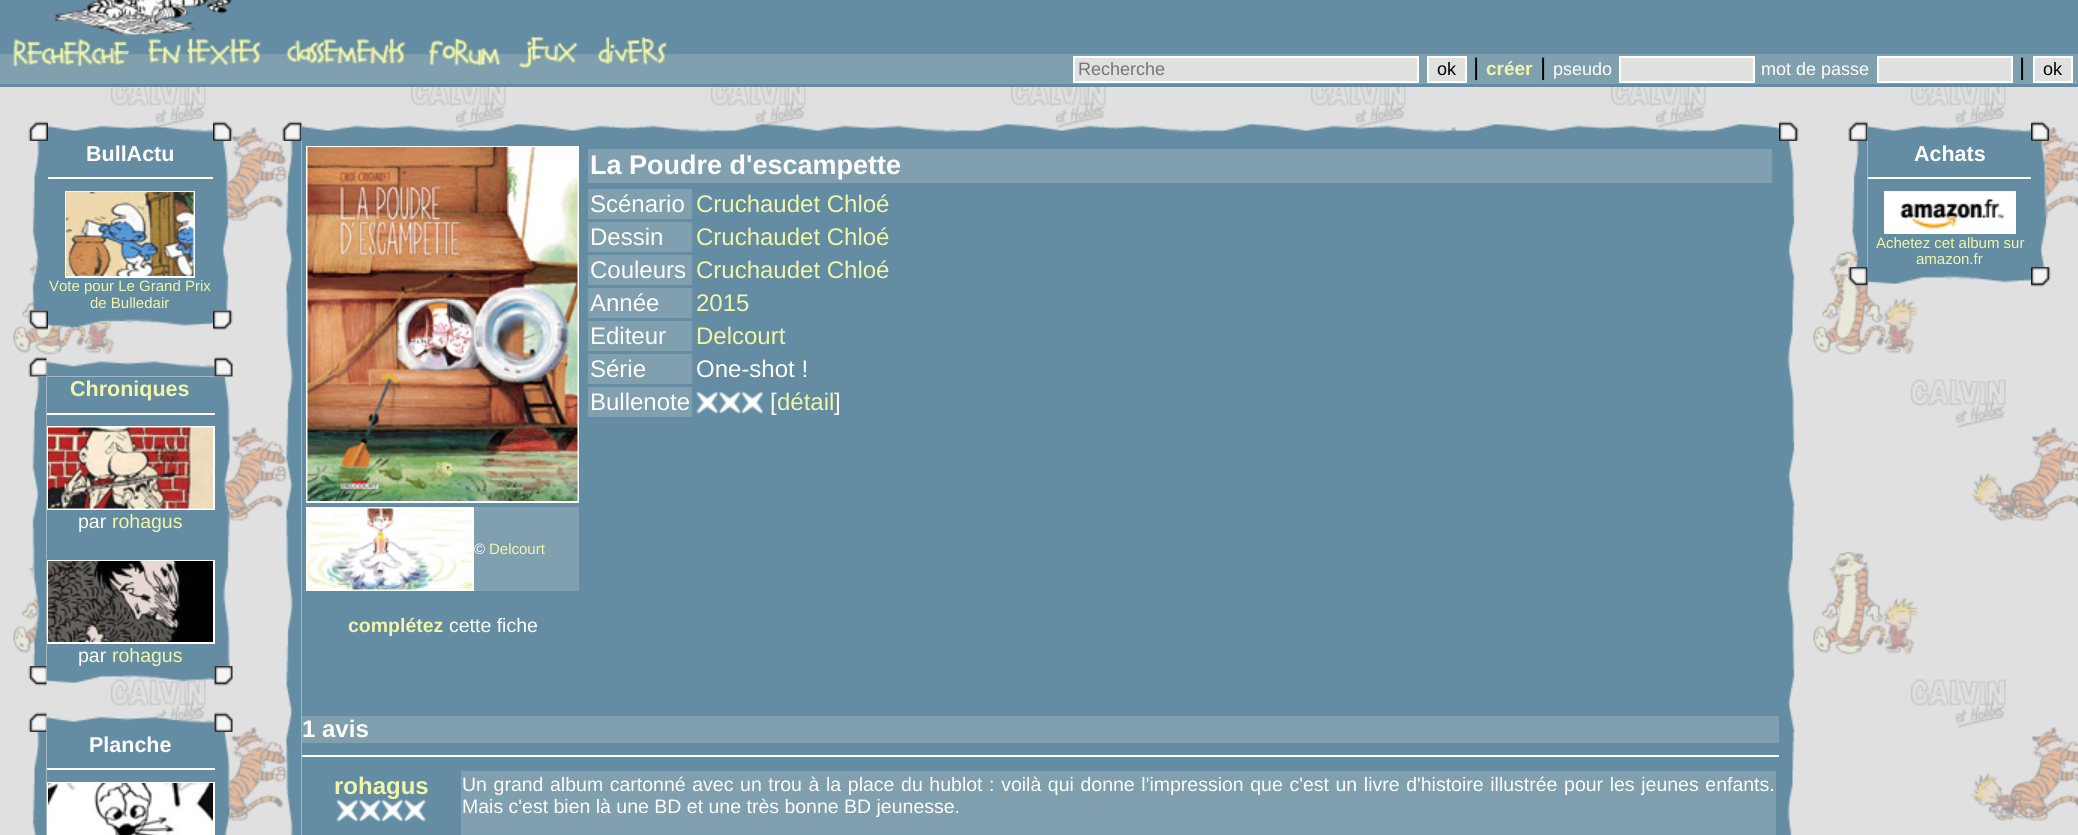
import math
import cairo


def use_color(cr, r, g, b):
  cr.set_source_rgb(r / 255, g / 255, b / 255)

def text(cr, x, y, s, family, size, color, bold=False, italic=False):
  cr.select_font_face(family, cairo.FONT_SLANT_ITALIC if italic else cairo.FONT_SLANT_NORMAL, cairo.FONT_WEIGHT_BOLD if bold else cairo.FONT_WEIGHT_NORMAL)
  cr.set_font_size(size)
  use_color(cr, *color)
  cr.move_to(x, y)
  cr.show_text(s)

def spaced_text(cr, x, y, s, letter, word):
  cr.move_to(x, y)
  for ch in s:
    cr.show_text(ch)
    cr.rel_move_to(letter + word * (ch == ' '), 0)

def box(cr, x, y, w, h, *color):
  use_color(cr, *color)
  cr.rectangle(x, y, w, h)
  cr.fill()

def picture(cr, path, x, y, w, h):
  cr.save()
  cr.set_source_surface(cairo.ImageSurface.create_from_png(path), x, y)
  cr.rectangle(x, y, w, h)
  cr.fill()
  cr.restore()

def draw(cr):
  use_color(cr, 224, 224, 224)
  cr.paint()
  picture(cr, "img_01.png", 13, 87, 2065, 734)
  box(cr, 0, 0, 2078, 51, 100, 141, 163)
  picture(cr, "img_02.png", 54, 0, 178, 35)
  box(cr, 0, 54, 2078, 30, 128, 160, 176)
  picture(cr, "img_03.png", 0, 34, 138, 33)
  picture(cr, "img_04.png", 138, 34, 135, 32)
  picture(cr, "img_05.png", 273, 38, 144, 26)
  picture(cr, "img_06.png", 417, 38, 93, 29)
  picture(cr, "img_07.png", 510, 36, 78, 32)
  picture(cr, "img_08.png", 588, 37, 90, 28)
  box(cr, 678, 51, 1400, 3, 100, 141, 163)
  box(cr, 0, 84, 2078, 3, 100, 141, 163)
  use_color(cr, 224, 224, 224)
  cr.rectangle(1074, 57, 344, 25)
  cr.fill_preserve()
  use_color(cr, 255, 255, 255)
  cr.stroke()
  use_color(cr, 224, 224, 224)
  cr.rectangle(1428, 57, 38, 25)
  cr.fill_preserve()
  use_color(cr, 255, 255, 255)
  cr.stroke()
  use_color(cr, 224, 224, 224)
  cr.rectangle(1620, 57, 134, 25)
  cr.fill_preserve()
  use_color(cr, 255, 255, 255)
  cr.stroke()
  use_color(cr, 224, 224, 224)
  cr.rectangle(1878, 57, 134, 25)
  cr.fill_preserve()
  use_color(cr, 255, 255, 255)
  cr.stroke()
  use_color(cr, 224, 224, 224)
  cr.rectangle(2034, 57, 38, 25)
  cr.fill_preserve()
  use_color(cr, 255, 255, 255)
  cr.stroke()
  picture(cr, "img_09.png", 28, 121, 20, 20)
  picture(cr, "img_10.png", 48, 125, 165, 16)
  picture(cr, "img_11.png", 213, 121, 20, 20)
  picture(cr, "img_12.png", 32, 141, 16, 170)
  box(cr, 48, 141, 165, 170, 100, 141, 163)
  box(cr, 48, 177, 165, 2, 255, 255, 255)
  cr.rectangle(66, 192, 128, 85)
  cr.stroke()
  picture(cr, "img_13.png", 66, 192, 128, 84)
  picture(cr, "img_14.png", 213, 141, 16, 170)
  picture(cr, "img_15.png", 28, 310, 20, 20)
  picture(cr, "img_16.png", 48, 311, 165, 18)
  picture(cr, "img_17.png", 213, 310, 20, 20)
  picture(cr, "img_18.png", 28, 357, 19, 20)
  picture(cr, "img_19.png", 46, 361, 169, 16)
  picture(cr, "img_20.png", 214, 357, 19, 20)
  picture(cr, "img_21.png", 32, 376, 15, 290)
  box(cr, 47, 377, 168, 289, 100, 141, 163)
  picture(cr, "img_24.png", 214, 376, 16, 290)
  box(cr, 47, 413, 168, 2, 255, 255, 255)
  cr.rectangle(48, 427, 166, 82)
  cr.stroke()
  picture(cr, "img_22.png", 48, 427, 165, 82)
  cr.rectangle(48, 561, 166, 82)
  cr.stroke()
  picture(cr, "img_23.png", 48, 561, 165, 81)
  picture(cr, "img_25.png", 28, 666, 19, 20)
  picture(cr, "img_26.png", 46, 666, 169, 18)
  picture(cr, "img_27.png", 214, 666, 19, 20)
  picture(cr, "img_28.png", 28, 712, 19, 20)
  picture(cr, "img_29.png", 46, 716, 169, 16)
  picture(cr, "img_30.png", 214, 712, 19, 20)
  picture(cr, "img_31.png", 32, 732, 15, 103)
  box(cr, 47, 732, 168, 50, 100, 141, 163)
  box(cr, 47, 768, 168, 2, 255, 255, 255)
  cr.rectangle(48, 783, 166, 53)
  cr.stroke()
  picture(cr, "img_32.png", 48, 783, 165, 52)
  picture(cr, "img_33.png", 215, 732, 15, 103)
  picture(cr, "img_34.png", 282, 121, 20, 20)
  picture(cr, "img_35.png", 301, 123, 1478, 18)
  picture(cr, "img_36.png", 1779, 121, 20, 20)
  picture(cr, "img_37.png", 286, 141, 16, 694)
  box(cr, 302, 141, 1477, 694, 100, 141, 163)
  box(cr, 588, 149, 1184, 34, 128, 160, 176)
  box(cr, 588, 189, 104, 30, 128, 160, 176)
  box(cr, 588, 222, 104, 30, 128, 160, 176)
  box(cr, 588, 255, 104, 30, 128, 160, 176)
  box(cr, 588, 288, 104, 30, 128, 160, 176)
  box(cr, 588, 321, 104, 30, 128, 160, 176)
  box(cr, 588, 354, 104, 30, 128, 160, 176)
  box(cr, 588, 387, 104, 30, 128, 160, 176)
  picture(cr, "img_38.png", 696, 391, 23, 23)
  picture(cr, "img_39.png", 719, 391, 22, 23)
  picture(cr, "img_40.png", 741, 391, 23, 23)
  cr.rectangle(307, 147, 271, 355)
  use_color(cr, 255, 255, 255)
  cr.stroke()
  picture(cr, "img_41.png", 307, 147, 271, 354)
  cr.rectangle(307, 508, 166, 82)
  cr.stroke()
  picture(cr, "img_42.png", 307, 508, 166, 82)
  box(cr, 474, 507, 105, 84, 128, 160, 176)
  box(cr, 302, 716, 1477, 27, 128, 160, 176)
  box(cr, 302, 755, 1477, 2, 255, 255, 255)
  box(cr, 461, 771, 1315, 64, 128, 160, 176)
  picture(cr, "img_44.png", 1779, 141, 16, 694)
  picture(cr, "img_34.png", 1848, 121, 20, 20)
  picture(cr, "img_45.png", 1867, 125, 164, 16)
  picture(cr, "img_46.png", 2031, 121, 20, 20)
  picture(cr, "img_47.png", 1852, 141, 16, 126)
  box(cr, 1868, 141, 163, 126, 100, 141, 163)
  box(cr, 1868, 177, 163, 2, 255, 255, 255)
  cr.rectangle(1885, 192, 130, 41)
  cr.stroke()
  picture(cr, "img_48.png", 1886, 193, 128, 39)
  picture(cr, "img_49.png", 2031, 141, 16, 126)
  picture(cr, "img_50.png", 1848, 267, 20, 20)
  picture(cr, "img_51.png", 1867, 267, 164, 18)
  picture(cr, "img_52.png", 2031, 267, 20, 20)
  text(cr, 1078, 75, "Recherche", "Liberation Sans", 18, (117, 117, 117))
  text(cr, 1437, 75, "ok", "Liberation Sans", 18, (0, 0, 0))
  text(cr, 1473, 75, "|", "Liberation Sans", 24, (0, 0, 0))
  text(cr, 1486, 75, "créer", "Liberation Sans", 19, (241, 246, 168), bold=True)
  text(cr, 1540, 75, "|", "Liberation Sans", 24, (0, 0, 0))
  text(cr, 1553, 75, "pseudo", "Liberation Sans", 18, (255, 255, 255))
  text(cr, 1761, 75, "mot de passe", "Liberation Sans", 18, (255, 255, 255))
  text(cr, 2019, 75, "|", "Liberation Sans", 24, (0, 0, 0))
  text(cr, 2043, 75, "ok", "Liberation Sans", 18, (0, 0, 0))
  text(cr, 86, 161, "BullActu", "Liberation Sans", 21.5, (255, 255, 255), bold=True)
  text(cr, 49, 291, "Vote pour Le Grand Prix", "Liberation Sans", 15, (241, 246, 168))
  text(cr, 90, 308, "de Bulledair", "Liberation Sans", 15, (241, 246, 168))
  text(cr, 70, 396, "Chroniques", "Liberation Sans", 21.5, (241, 246, 168), bold=True)
  text(cr, 78, 528, "par", "Liberation Sans", 19.5, (255, 255, 255))
  text(cr, 112, 528, "rohagus", "Liberation Sans", 19.5, (241, 246, 168))
  text(cr, 78, 662, "par", "Liberation Sans", 19.5, (255, 255, 255))
  text(cr, 112, 662, "rohagus", "Liberation Sans", 19.5, (241, 246, 168))
  text(cr, 89, 752, "Planche", "Liberation Sans", 21.5, (255, 255, 255), bold=True)
  text(cr, 590, 174, "La Poudre d'escampette", "Liberation Sans", 27, (255, 255, 255), bold=True)
  text(cr, 590, 212, "Scénario", "Liberation Sans", 24, (255, 255, 255))
  text(cr, 696, 212, "Cruchaudet Chloé", "Liberation Sans", 24, (241, 246, 168))
  text(cr, 590, 245, "Dessin", "Liberation Sans", 24, (255, 255, 255))
  text(cr, 696, 245, "Cruchaudet Chloé", "Liberation Sans", 24, (241, 246, 168))
  text(cr, 590, 278, "Couleurs", "Liberation Sans", 24, (255, 255, 255))
  text(cr, 696, 278, "Cruchaudet Chloé", "Liberation Sans", 24, (241, 246, 168))
  text(cr, 590, 311, "Année", "Liberation Sans", 24, (255, 255, 255))
  text(cr, 696, 311, "2015", "Liberation Sans", 24, (241, 246, 168))
  text(cr, 590, 344, "Editeur", "Liberation Sans", 24, (255, 255, 255))
  text(cr, 696, 344, "Delcourt", "Liberation Sans", 24, (241, 246, 168))
  text(cr, 590, 377, "Série", "Liberation Sans", 24, (255, 255, 255))
  text(cr, 696, 377, "One-shot !", "Liberation Sans", 24, (255, 255, 255))
  text(cr, 590, 410, "Bullenote", "Liberation Sans", 24, (255, 255, 255))
  text(cr, 770, 410, "[", "Liberation Sans", 24, (255, 255, 255))
  text(cr, 777, 410, "détail", "Liberation Sans", 24, (241, 246, 168))
  text(cr, 834, 410, "]", "Liberation Sans", 24, (255, 255, 255))
  text(cr, 474, 554, "©", "Liberation Sans", 15, (255, 255, 255))
  text(cr, 489, 554, "Delcourt", "Liberation Sans", 15, (241, 246, 168))
  text(cr, 348, 632, "complétez", "Liberation Sans", 19.5, (241, 246, 168), bold=True)
  text(cr, 449, 632, "cette fiche", "Liberation Sans", 19.5, (255, 255, 255))
  text(cr, 302, 737, "1 avis", "Liberation Sans", 24, (255, 255, 255), bold=True)
  text(cr, 334, 794, "rohagus", "Liberation Sans", 24, (241, 246, 168), bold=True)
  picture(cr, "img_40.png", 336, 799, 23, 23)
  picture(cr, "img_39.png", 359, 799, 22, 23)
  picture(cr, "img_43.png", 381, 799, 23, 23)
  picture(cr, "img_39.png", 404, 799, 22, 23)
  cr.select_font_face("Liberation Sans")
  cr.set_font_size(19.5)
  use_color(cr, 255, 255, 255)
  spaced_text(cr, 462, 791, "Un grand album cartonné avec un trou à la place du hublot : voilà qui donne l'impression que c'est un livre d'histoire illustrée pour les jeunes enfants.", 0, 1.2)
  text(cr, 462, 813, "Mais c'est bien là une BD et une très bonne BD jeunesse.", "Liberation Sans", 19.5, (255, 255, 255))
  text(cr, 1914, 161, "Achats", "Liberation Sans", 21.5, (255, 255, 255), bold=True)
  text(cr, 1876, 248, "Achetez cet album sur", "Liberation Sans", 15, (241, 246, 168))
  text(cr, 1916, 264, "amazon.fr", "Liberation Sans", 15, (241, 246, 168))


surface = cairo.ImageSurface(cairo.FORMAT_RGB24, 2078, 835)
cr = cairo.Context(surface)
options = cairo.FontOptions()
options.set_hint_metrics(cairo.HINT_METRICS_OFF)
options.set_hint_style(cairo.HINT_STYLE_NONE)
cr.set_font_options(options)
cr.set_miter_limit(4)
draw(cr)
surface.write_to_png("out.png")
